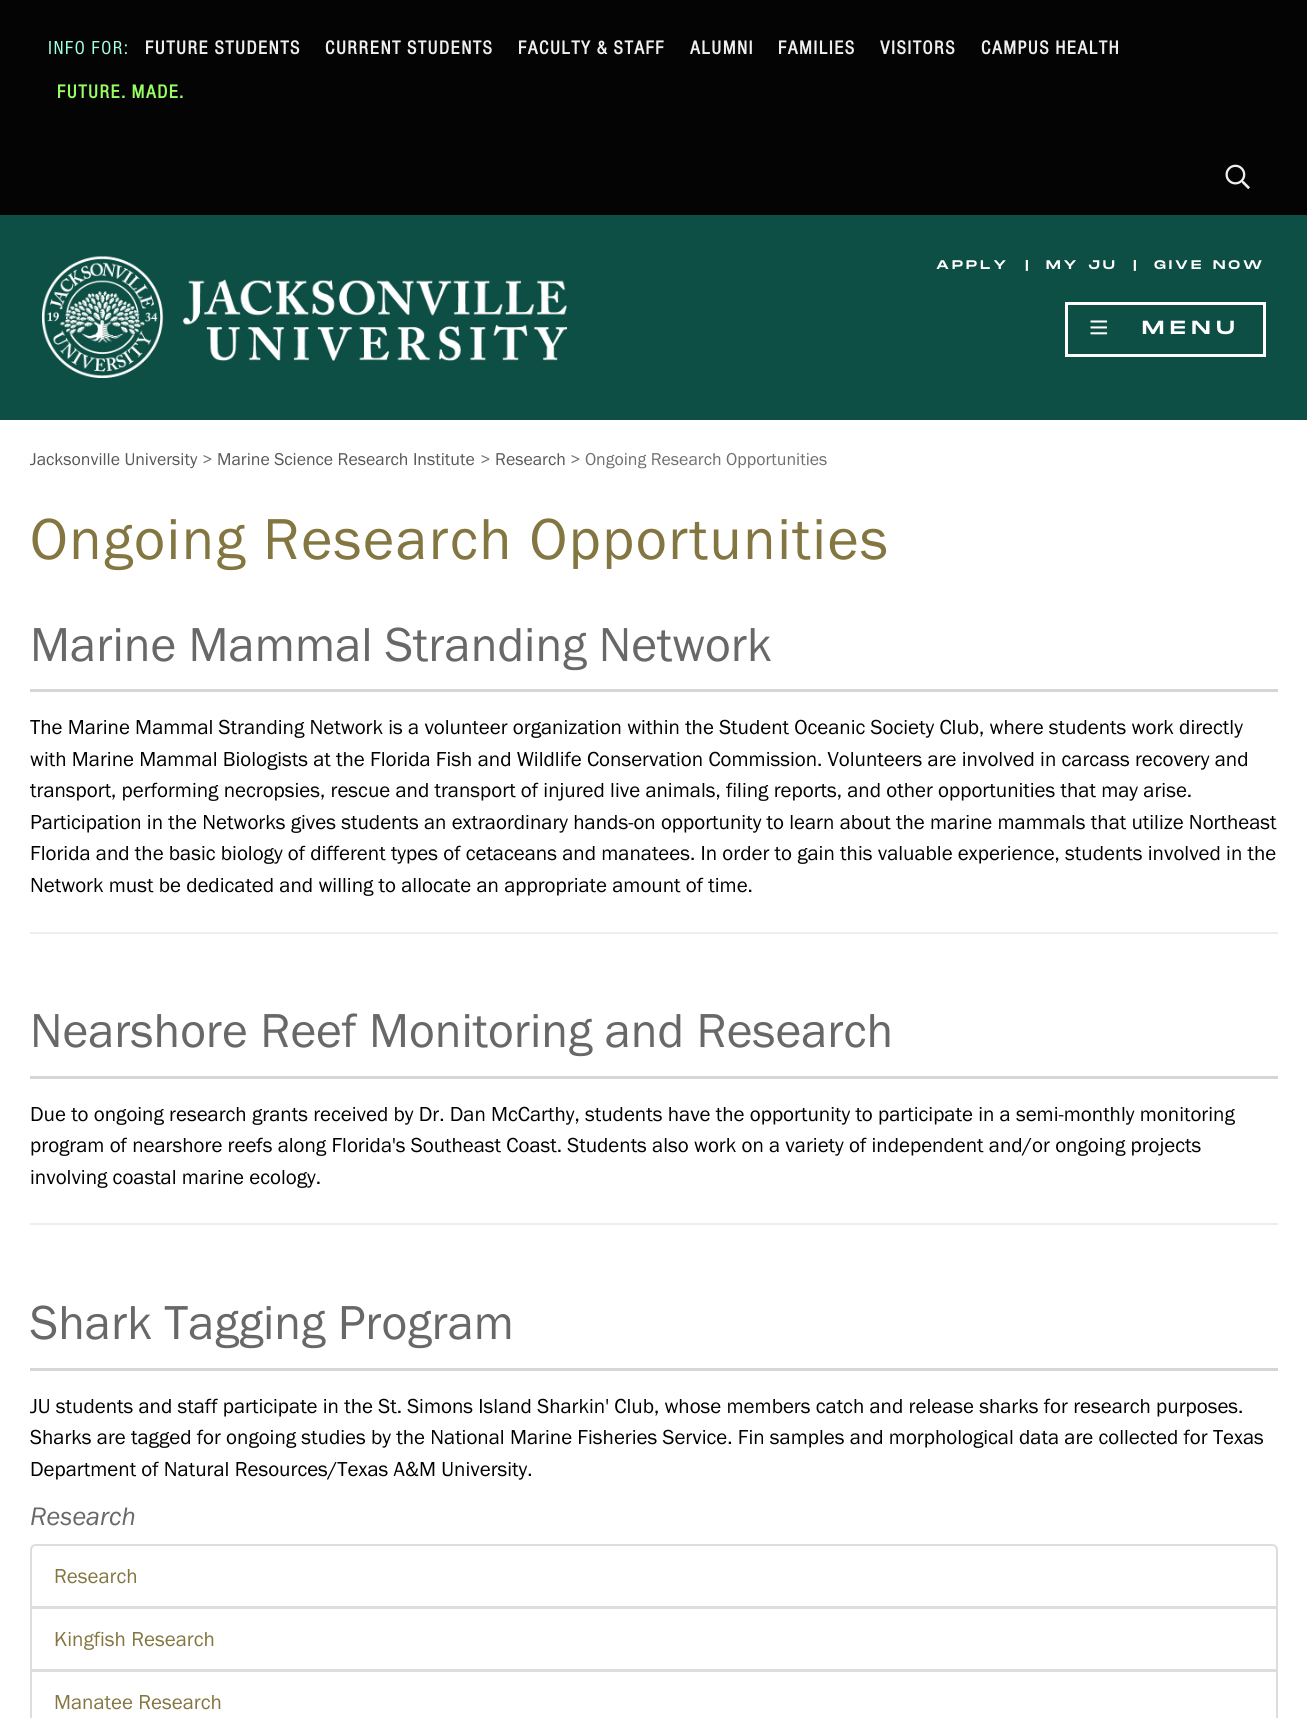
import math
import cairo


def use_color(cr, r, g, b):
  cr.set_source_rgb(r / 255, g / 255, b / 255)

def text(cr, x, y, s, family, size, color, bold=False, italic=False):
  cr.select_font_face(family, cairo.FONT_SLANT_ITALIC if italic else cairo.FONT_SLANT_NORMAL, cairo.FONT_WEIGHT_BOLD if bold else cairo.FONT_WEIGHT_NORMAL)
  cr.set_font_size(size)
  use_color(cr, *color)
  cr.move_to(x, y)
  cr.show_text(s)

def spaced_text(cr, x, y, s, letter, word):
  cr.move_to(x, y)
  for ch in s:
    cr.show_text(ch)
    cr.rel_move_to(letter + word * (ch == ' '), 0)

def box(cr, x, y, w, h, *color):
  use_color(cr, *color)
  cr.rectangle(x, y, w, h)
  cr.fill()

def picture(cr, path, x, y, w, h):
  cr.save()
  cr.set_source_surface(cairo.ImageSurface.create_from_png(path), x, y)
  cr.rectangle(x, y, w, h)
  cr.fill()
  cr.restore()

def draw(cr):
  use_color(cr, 4, 4, 4)
  cr.paint()
  picture(cr, "img_01.png", 1225, 164, 25, 25)
  box(cr, 0, 215, 1307, 205, 13, 79, 69)
  picture(cr, "img_02.png", 42, 256, 525, 122)
  cr.rectangle(1066.5, 303.5, 198, 52)
  use_color(cr, 255, 255, 255)
  cr.set_line_width(3)
  cr.stroke()
  picture(cr, "img_03.png", 1090, 320, 18, 15)
  box(cr, 0, 420, 1307, 1298, 255, 255, 255)
  box(cr, 30, 689, 1248, 3, 214, 214, 214)
  box(cr, 30, 932, 1248, 2, 238, 238, 238)
  box(cr, 30, 1076, 1248, 3, 214, 214, 214)
  box(cr, 30, 1223, 1248, 2, 238, 238, 238)
  box(cr, 30, 1368, 1248, 3, 214, 214, 214)
  cr.new_path()
  cr.move_to(36, 1545)
  cr.line_to(1272, 1545)
  cr.curve_to(1275, 1545, 1277, 1547, 1277, 1550)
  cr.line_to(1277, 1607)
  cr.line_to(31, 1607)
  cr.line_to(31, 1550)
  cr.curve_to(31, 1547, 33, 1545, 36, 1545)
  cr.close_path()
  use_color(cr, 221, 221, 221)
  cr.set_line_width(2)
  cr.stroke()
  cr.rectangle(31, 1608, 1246, 62)
  cr.stroke()
  cr.rectangle(31, 1671, 1246, 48)
  cr.stroke()
  cr.select_font_face("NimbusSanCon")
  cr.set_font_size(19.5)
  use_color(cr, 164, 255, 228)
  spaced_text(cr, 48, 54, "INFO FOR:", 1.5, 0)
  cr.select_font_face("NimbusSanCon", cairo.FONT_SLANT_NORMAL, cairo.FONT_WEIGHT_BOLD)
  use_color(cr, 239, 239, 239)
  spaced_text(cr, 145, 54, "FUTURE STUDENTS", 1.5, 0)
  spaced_text(cr, 325, 54, "CURRENT STUDENTS", 1.5, 0)
  spaced_text(cr, 518, 54, "FACULTY & STAFF", 1.5, 0)
  spaced_text(cr, 690, 54, "ALUMNI", 1.5, 0)
  spaced_text(cr, 778, 54, "FAMILIES", 1.5, 0)
  spaced_text(cr, 880, 54, "VISITORS", 1.5, 0)
  spaced_text(cr, 981, 54, "CAMPUS HEALTH", 1.5, 0)
  use_color(cr, 152, 253, 99)
  spaced_text(cr, 57, 98, "FUTURE. MADE.", 1.5, 0)
  cr.select_font_face("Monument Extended")
  cr.set_font_size(12.5)
  use_color(cr, 255, 255, 255)
  spaced_text(cr, 936, 269, "APPLY", 3, 0)
  spaced_text(cr, 1025, 269, "|", 3, 0)
  spaced_text(cr, 1046, 269, "MY JU", 3, 0)
  spaced_text(cr, 1133, 269, "|", 3, 0)
  spaced_text(cr, 1154, 269, "GIVE NOW", 3, 0)
  cr.set_font_size(19)
  spaced_text(cr, 1142, 334, "MENU", 6, 0)
  text(cr, 30, 465, "Jacksonville University", "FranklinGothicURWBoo", 17.8, (87, 87, 87))
  text(cr, 202, 465, ">", "FranklinGothicURWBoo", 17.8, (111, 111, 111))
  text(cr, 217, 465, "Marine Science Research Institute", "FranklinGothicURWBoo", 17.8, (87, 87, 87))
  text(cr, 480, 465, ">", "FranklinGothicURWBoo", 17.8, (111, 111, 111))
  text(cr, 495, 465, "Research", "FranklinGothicURWBoo", 17.8, (87, 87, 87))
  text(cr, 570, 465, "> Ongoing Research Opportunities", "FranklinGothicURWBoo", 17.8, (111, 111, 111))
  cr.set_font_size(59.8)
  use_color(cr, 132, 118, 65)
  spaced_text(cr, 30, 559, "Ongoing Research Opportunities", 1.5, 0)
  text(cr, 30, 661, "Marine Mammal Stranding Network", "FranklinGothicURWBoo", 49.4, (104, 104, 104))
  text(cr, 30, 734, "The Marine Mammal Stranding Network is a volunteer organization within the Student Oceanic Society Club, where students work directly", "FranklinGothicURWBoo", 21, (0, 0, 0))
  text(cr, 30, 766, "with Marine Mammal Biologists at the Florida Fish and Wildlife Conservation Commission. Volunteers are involved in carcass recovery and", "FranklinGothicURWBoo", 21, (0, 0, 0))
  text(cr, 30, 797, "transport, performing necropsies, rescue and transport of injured live animals, filing reports, and other opportunities that may arise.", "FranklinGothicURWBoo", 21, (0, 0, 0))
  text(cr, 30, 829, "Participation in the Networks gives students an extraordinary hands-on opportunity to learn about the marine mammals that utilize Northeast", "FranklinGothicURWBoo", 21, (0, 0, 0))
  text(cr, 30, 860, "Florida and the basic biology of different types of cetaceans and manatees. In order to gain this valuable experience, students involved in the", "FranklinGothicURWBoo", 21, (0, 0, 0))
  text(cr, 30, 892, "Network must be dedicated and willing to allocate an appropriate amount of time.", "FranklinGothicURWBoo", 21, (0, 0, 0))
  text(cr, 30, 1047, "Nearshore Reef Monitoring and Research", "FranklinGothicURWBoo", 49.4, (104, 104, 104))
  text(cr, 30, 1121, "Due to ongoing research grants received by Dr. Dan McCarthy, students have the opportunity to participate in a semi-monthly monitoring", "FranklinGothicURWBoo", 21, (0, 0, 0))
  text(cr, 30, 1152, "program of nearshore reefs along Florida's Southeast Coast. Students also work on a variety of independent and/or ongoing projects", "FranklinGothicURWBoo", 21, (0, 0, 0))
  text(cr, 30, 1184, "involving coastal marine ecology.", "FranklinGothicURWBoo", 21, (0, 0, 0))
  text(cr, 30, 1339, "Shark Tagging Program", "FranklinGothicURWBoo", 49.4, (104, 104, 104))
  text(cr, 30, 1413, "JU students and staff participate in the St. Simons Island Sharkin' Club, whose members catch and release sharks for research purposes.", "FranklinGothicURWBoo", 21, (0, 0, 0))
  text(cr, 30, 1444, "Sharks are tagged for ongoing studies by the National Marine Fisheries Service. Fin samples and morphological data are collected for Texas", "FranklinGothicURWBoo", 21, (0, 0, 0))
  text(cr, 30, 1476, "Department of Natural Resources/Texas A&M University.", "FranklinGothicURWBoo", 21, (0, 0, 0))
  text(cr, 30, 1525, "Research", "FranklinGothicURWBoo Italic", 26.25, (104, 104, 104), italic=True)
  text(cr, 54, 1583, "Research", "FranklinGothicURWBoo", 21, (132, 118, 65))
  text(cr, 54, 1646, "Kingfish Research", "FranklinGothicURWBoo", 21, (132, 118, 65))
  text(cr, 54, 1709, "Manatee Research", "FranklinGothicURWBoo", 21, (132, 118, 65))


surface = cairo.ImageSurface(cairo.FORMAT_RGB24, 1307, 1718)
cr = cairo.Context(surface)
options = cairo.FontOptions()
options.set_hint_metrics(cairo.HINT_METRICS_OFF)
options.set_hint_style(cairo.HINT_STYLE_NONE)
cr.set_font_options(options)
cr.set_miter_limit(4)
draw(cr)
surface.write_to_png("out.png")
